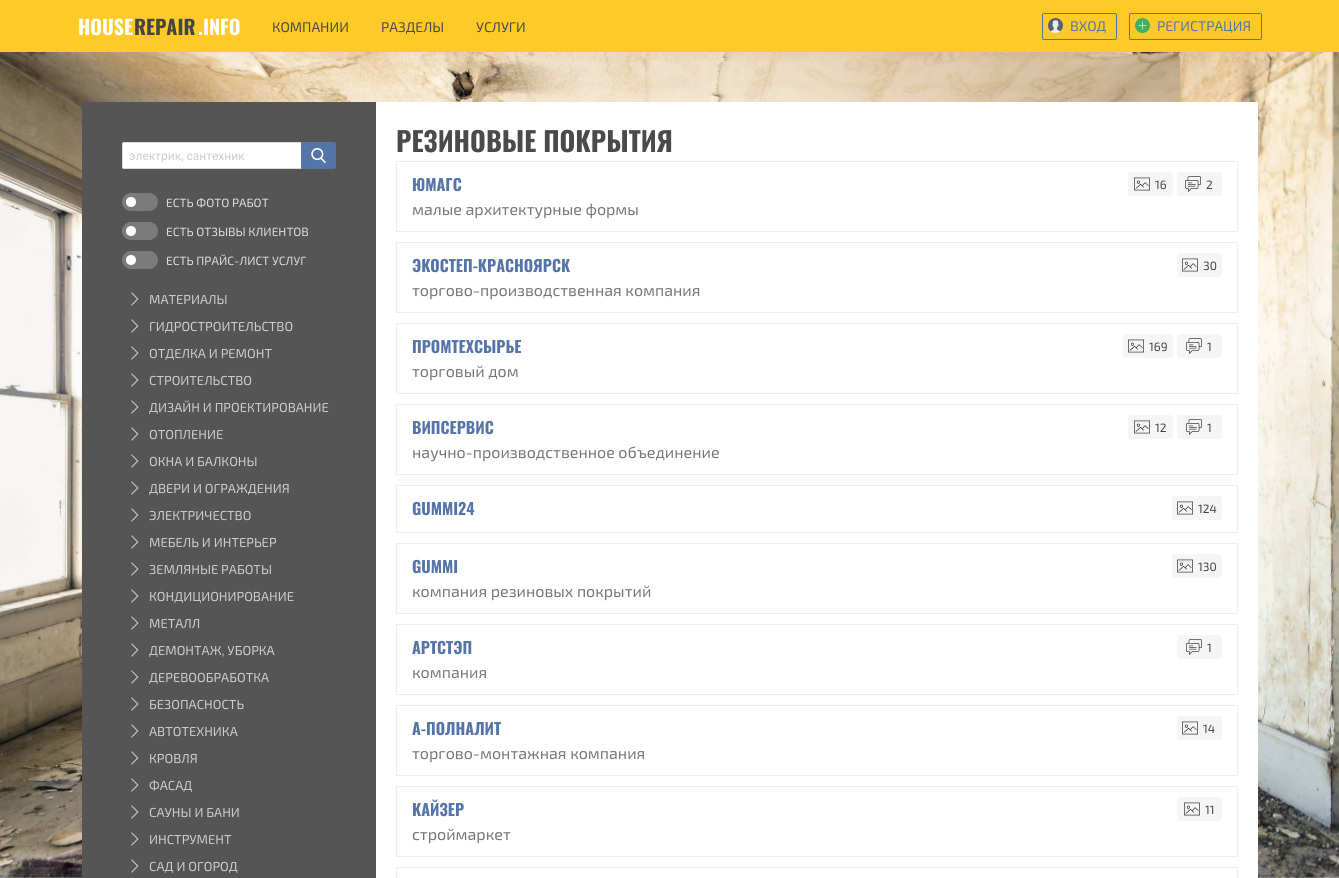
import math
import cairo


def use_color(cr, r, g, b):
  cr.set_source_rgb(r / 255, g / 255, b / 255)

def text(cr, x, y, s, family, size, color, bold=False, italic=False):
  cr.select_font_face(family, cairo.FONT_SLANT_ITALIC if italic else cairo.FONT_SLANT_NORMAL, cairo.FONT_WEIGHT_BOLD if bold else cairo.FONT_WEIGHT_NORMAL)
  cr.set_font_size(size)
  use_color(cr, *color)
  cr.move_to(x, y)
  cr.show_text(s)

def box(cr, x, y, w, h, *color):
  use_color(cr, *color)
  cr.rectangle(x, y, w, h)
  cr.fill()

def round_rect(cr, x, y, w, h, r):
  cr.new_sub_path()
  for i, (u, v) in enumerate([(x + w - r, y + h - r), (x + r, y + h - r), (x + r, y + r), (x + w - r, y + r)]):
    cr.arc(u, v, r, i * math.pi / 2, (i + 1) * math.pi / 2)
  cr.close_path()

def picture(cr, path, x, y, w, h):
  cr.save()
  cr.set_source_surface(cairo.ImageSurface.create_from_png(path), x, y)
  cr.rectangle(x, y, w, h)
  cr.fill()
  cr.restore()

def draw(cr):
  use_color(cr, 255, 255, 255)
  cr.paint()
  picture(cr, "img_01.png", 0, 52, 1339, 826)
  box(cr, 0, 0, 1339, 52, 255, 202, 40)
  round_rect(cr, 1042.5, 13.5, 74, 26, 1.5)
  use_color(cr, 85, 117, 169)
  cr.set_line_width(1)
  cr.stroke()
  picture(cr, "img_02.png", 1048, 18, 15, 15)
  round_rect(cr, 1129.5, 13.5, 132, 26, 1.5)
  cr.stroke()
  picture(cr, "img_03.png", 1135, 18, 15, 15)
  box(cr, 82, 102, 294, 776, 85, 85, 85)
  use_color(cr, 255, 255, 255)
  cr.new_path()
  cr.move_to(124, 142.5)
  cr.line_to(301.5, 142.5)
  cr.line_to(301.5, 168.5)
  cr.line_to(124, 168.5)
  cr.curve_to(123, 168.5, 122.5, 168, 122.5, 167)
  cr.line_to(122.5, 144)
  cr.curve_to(122.5, 143, 123, 142.5, 124, 142.5)
  cr.close_path()
  cr.fill_preserve()
  use_color(cr, 219, 219, 219)
  cr.stroke()
  use_color(cr, 85, 117, 169)
  cr.new_path()
  cr.move_to(301, 142)
  cr.line_to(334, 142)
  cr.curve_to(335, 142, 336, 143, 336, 144)
  cr.line_to(336, 167)
  cr.curve_to(336, 168, 335, 169, 334, 169)
  cr.line_to(301, 169)
  cr.close_path()
  cr.fill()
  picture(cr, "img_04.png", 311, 148, 15, 15)
  use_color(cr, 123, 123, 123)
  round_rect(cr, 122, 193, 36, 18, 9)
  cr.fill()
  use_color(cr, 255, 255, 255)
  cr.arc(131, 202, 5, 0, 2 * math.pi)
  cr.fill()
  use_color(cr, 123, 123, 123)
  round_rect(cr, 122, 222, 36, 18, 9)
  cr.fill()
  use_color(cr, 255, 255, 255)
  cr.arc(131, 231, 5, 0, 2 * math.pi)
  cr.fill()
  use_color(cr, 123, 123, 123)
  round_rect(cr, 122, 251, 36, 18, 9)
  cr.fill()
  use_color(cr, 255, 255, 255)
  cr.arc(131, 260, 5, 0, 2 * math.pi)
  cr.fill()
  use_color(cr, 204, 204, 204)
  cr.new_path()
  cr.move_to(138.5, 299)
  cr.line_to(131.5, 306)
  cr.line_to(131.5, 304.5)
  cr.line_to(137, 299)
  cr.close_path()
  cr.move_to(131.5, 292)
  cr.line_to(138.5, 299)
  cr.line_to(137, 299)
  cr.line_to(131.5, 293.5)
  cr.close_path()
  cr.move_to(138.5, 326)
  cr.line_to(131.5, 333)
  cr.line_to(131.5, 331.5)
  cr.line_to(137, 326)
  cr.close_path()
  cr.fill()
  cr.new_path()
  cr.move_to(131.5, 319)
  cr.line_to(138.5, 326)
  cr.line_to(137, 326)
  cr.line_to(131.5, 320.5)
  cr.close_path()
  cr.move_to(138.5, 353)
  cr.line_to(131.5, 360)
  cr.line_to(131.5, 358.5)
  cr.line_to(137, 353)
  cr.close_path()
  cr.fill()
  cr.new_path()
  cr.move_to(131.5, 346)
  cr.line_to(138.5, 353)
  cr.line_to(137, 353)
  cr.line_to(131.5, 347.5)
  cr.close_path()
  cr.move_to(138.5, 380)
  cr.line_to(131.5, 387)
  cr.line_to(131.5, 385.5)
  cr.line_to(137, 380)
  cr.close_path()
  cr.fill()
  cr.new_path()
  cr.move_to(131.5, 373)
  cr.line_to(138.5, 380)
  cr.line_to(137, 380)
  cr.line_to(131.5, 374.5)
  cr.close_path()
  cr.move_to(138.5, 407)
  cr.line_to(131.5, 414)
  cr.line_to(131.5, 412.5)
  cr.line_to(137, 407)
  cr.close_path()
  cr.fill()
  cr.new_path()
  cr.move_to(131.5, 400)
  cr.line_to(138.5, 407)
  cr.line_to(137, 407)
  cr.line_to(131.5, 401.5)
  cr.close_path()
  cr.move_to(138.5, 434)
  cr.line_to(131.5, 441)
  cr.line_to(131.5, 439.5)
  cr.line_to(137, 434)
  cr.close_path()
  cr.fill()
  cr.new_path()
  cr.move_to(131.5, 427)
  cr.line_to(138.5, 434)
  cr.line_to(137, 434)
  cr.line_to(131.5, 428.5)
  cr.close_path()
  cr.move_to(138.5, 461)
  cr.line_to(131.5, 468)
  cr.line_to(131.5, 466.5)
  cr.line_to(137, 461)
  cr.close_path()
  cr.fill()
  cr.new_path()
  cr.move_to(131.5, 454)
  cr.line_to(138.5, 461)
  cr.line_to(137, 461)
  cr.line_to(131.5, 455.5)
  cr.close_path()
  cr.move_to(138.5, 488)
  cr.line_to(131.5, 495)
  cr.line_to(131.5, 493.5)
  cr.line_to(137, 488)
  cr.close_path()
  cr.fill()
  cr.new_path()
  cr.move_to(131.5, 481)
  cr.line_to(138.5, 488)
  cr.line_to(137, 488)
  cr.line_to(131.5, 482.5)
  cr.close_path()
  cr.move_to(138.5, 515)
  cr.line_to(131.5, 522)
  cr.line_to(131.5, 520.5)
  cr.line_to(137, 515)
  cr.close_path()
  cr.fill()
  cr.new_path()
  cr.move_to(131.5, 508)
  cr.line_to(138.5, 515)
  cr.line_to(137, 515)
  cr.line_to(131.5, 509.5)
  cr.close_path()
  cr.move_to(138.5, 542)
  cr.line_to(131.5, 549)
  cr.line_to(131.5, 547.5)
  cr.line_to(137, 542)
  cr.close_path()
  cr.fill()
  cr.new_path()
  cr.move_to(131.5, 535)
  cr.line_to(138.5, 542)
  cr.line_to(137, 542)
  cr.line_to(131.5, 536.5)
  cr.close_path()
  cr.move_to(138.5, 569)
  cr.line_to(131.5, 576)
  cr.line_to(131.5, 574.5)
  cr.line_to(137, 569)
  cr.close_path()
  cr.fill()
  cr.new_path()
  cr.move_to(131.5, 562)
  cr.line_to(138.5, 569)
  cr.line_to(137, 569)
  cr.line_to(131.5, 563.5)
  cr.close_path()
  cr.move_to(138.5, 596)
  cr.line_to(131.5, 603)
  cr.line_to(131.5, 601.5)
  cr.line_to(137, 596)
  cr.close_path()
  cr.fill()
  cr.new_path()
  cr.move_to(131.5, 589)
  cr.line_to(138.5, 596)
  cr.line_to(137, 596)
  cr.line_to(131.5, 590.5)
  cr.close_path()
  cr.move_to(138.5, 623)
  cr.line_to(131.5, 630)
  cr.line_to(131.5, 628.5)
  cr.line_to(137, 623)
  cr.close_path()
  cr.fill()
  cr.new_path()
  cr.move_to(131.5, 616)
  cr.line_to(138.5, 623)
  cr.line_to(137, 623)
  cr.line_to(131.5, 617.5)
  cr.close_path()
  cr.move_to(138.5, 650)
  cr.line_to(131.5, 657)
  cr.line_to(131.5, 655.5)
  cr.line_to(137, 650)
  cr.close_path()
  cr.fill()
  cr.new_path()
  cr.move_to(131.5, 643)
  cr.line_to(138.5, 650)
  cr.line_to(137, 650)
  cr.line_to(131.5, 644.5)
  cr.close_path()
  cr.move_to(138.5, 677)
  cr.line_to(131.5, 684)
  cr.line_to(131.5, 682.5)
  cr.line_to(137, 677)
  cr.close_path()
  cr.fill()
  cr.new_path()
  cr.move_to(131.5, 670)
  cr.line_to(138.5, 677)
  cr.line_to(137, 677)
  cr.line_to(131.5, 671.5)
  cr.close_path()
  cr.move_to(138.5, 704)
  cr.line_to(131.5, 711)
  cr.line_to(131.5, 709.5)
  cr.line_to(137, 704)
  cr.close_path()
  cr.fill()
  cr.new_path()
  cr.move_to(131.5, 697)
  cr.line_to(138.5, 704)
  cr.line_to(137, 704)
  cr.line_to(131.5, 698.5)
  cr.close_path()
  cr.move_to(138.5, 731)
  cr.line_to(131.5, 738)
  cr.line_to(131.5, 736.5)
  cr.line_to(137, 731)
  cr.close_path()
  cr.fill()
  cr.new_path()
  cr.move_to(131.5, 724)
  cr.line_to(138.5, 731)
  cr.line_to(137, 731)
  cr.line_to(131.5, 725.5)
  cr.close_path()
  cr.move_to(138.5, 758)
  cr.line_to(131.5, 765)
  cr.line_to(131.5, 763.5)
  cr.line_to(137, 758)
  cr.close_path()
  cr.fill()
  cr.new_path()
  cr.move_to(131.5, 751)
  cr.line_to(138.5, 758)
  cr.line_to(137, 758)
  cr.line_to(131.5, 752.5)
  cr.close_path()
  cr.move_to(138.5, 785)
  cr.line_to(131.5, 792)
  cr.line_to(131.5, 790.5)
  cr.line_to(137, 785)
  cr.close_path()
  cr.fill()
  cr.new_path()
  cr.move_to(131.5, 778)
  cr.line_to(138.5, 785)
  cr.line_to(137, 785)
  cr.line_to(131.5, 779.5)
  cr.close_path()
  cr.move_to(138.5, 812)
  cr.line_to(131.5, 819)
  cr.line_to(131.5, 817.5)
  cr.line_to(137, 812)
  cr.close_path()
  cr.fill()
  cr.new_path()
  cr.move_to(131.5, 805)
  cr.line_to(138.5, 812)
  cr.line_to(137, 812)
  cr.line_to(131.5, 806.5)
  cr.close_path()
  cr.move_to(138.5, 839)
  cr.line_to(131.5, 846)
  cr.line_to(131.5, 844.5)
  cr.line_to(137, 839)
  cr.close_path()
  cr.fill()
  cr.new_path()
  cr.move_to(131.5, 832)
  cr.line_to(138.5, 839)
  cr.line_to(137, 839)
  cr.line_to(131.5, 833.5)
  cr.close_path()
  cr.move_to(138.5, 866)
  cr.line_to(131.5, 873)
  cr.line_to(131.5, 871.5)
  cr.line_to(137, 866)
  cr.close_path()
  cr.fill()
  cr.new_path()
  cr.move_to(131.5, 859)
  cr.line_to(138.5, 866)
  cr.line_to(137, 866)
  cr.line_to(131.5, 860.5)
  cr.close_path()
  cr.fill()
  box(cr, 376, 102, 882, 776, 255, 255, 255)
  cr.rectangle(396.5, 161.5, 841, 70)
  use_color(cr, 238, 238, 238)
  cr.stroke()
  use_color(cr, 245, 245, 245)
  round_rect(cr, 1128, 172, 45, 24, 3)
  cr.fill()
  picture(cr, "img_05.png", 1134, 177, 16, 14)
  round_rect(cr, 1177, 172, 45, 24, 3)
  cr.fill()
  picture(cr, "img_06.png", 1185, 176, 16, 16)
  cr.rectangle(396.5, 242.5, 841, 70)
  use_color(cr, 238, 238, 238)
  cr.stroke()
  use_color(cr, 245, 245, 245)
  round_rect(cr, 1177, 253, 45, 24, 3)
  cr.fill()
  picture(cr, "img_05.png", 1182, 258, 16, 14)
  cr.rectangle(396.5, 323.5, 841, 70)
  use_color(cr, 238, 238, 238)
  cr.stroke()
  use_color(cr, 245, 245, 245)
  round_rect(cr, 1123, 334, 50, 24, 3)
  cr.fill()
  picture(cr, "img_05.png", 1128, 339, 16, 14)
  round_rect(cr, 1177, 334, 45, 24, 3)
  cr.fill()
  picture(cr, "img_06.png", 1186, 338, 16, 16)
  cr.rectangle(396.5, 404.5, 841, 70)
  use_color(cr, 238, 238, 238)
  cr.stroke()
  use_color(cr, 245, 245, 245)
  round_rect(cr, 1128, 415, 45, 24, 3)
  cr.fill()
  picture(cr, "img_05.png", 1134, 420, 16, 14)
  round_rect(cr, 1177, 415, 45, 24, 3)
  cr.fill()
  picture(cr, "img_06.png", 1186, 419, 16, 16)
  cr.rectangle(396.5, 485.5, 841, 47)
  use_color(cr, 238, 238, 238)
  cr.stroke()
  use_color(cr, 245, 245, 245)
  round_rect(cr, 1172, 496, 50, 24, 3)
  cr.fill()
  picture(cr, "img_05.png", 1177, 501, 16, 14)
  cr.rectangle(396.5, 543.5, 841, 70)
  use_color(cr, 238, 238, 238)
  cr.stroke()
  use_color(cr, 245, 245, 245)
  round_rect(cr, 1172, 554, 50, 24, 3)
  cr.fill()
  picture(cr, "img_05.png", 1177, 559, 16, 14)
  cr.rectangle(396.5, 624.5, 841, 70)
  use_color(cr, 238, 238, 238)
  cr.stroke()
  use_color(cr, 245, 245, 245)
  round_rect(cr, 1177, 635, 45, 24, 3)
  cr.fill()
  picture(cr, "img_06.png", 1186, 639, 16, 16)
  cr.rectangle(396.5, 705.5, 841, 70)
  use_color(cr, 238, 238, 238)
  cr.stroke()
  use_color(cr, 245, 245, 245)
  round_rect(cr, 1177, 716, 45, 24, 3)
  cr.fill()
  picture(cr, "img_05.png", 1182, 721, 16, 14)
  cr.rectangle(396.5, 786.5, 841, 70)
  use_color(cr, 238, 238, 238)
  cr.stroke()
  use_color(cr, 245, 245, 245)
  round_rect(cr, 1177, 797, 45, 24, 3)
  cr.fill()
  picture(cr, "img_05.png", 1184, 802, 16, 14)
  cr.rectangle(396.5, 867.5, 841, 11)
  use_color(cr, 238, 238, 238)
  cr.stroke()
  text(cr, 78, 35, "HOUSE", "Oswald", 20, (255, 255, 255), bold=True)
  text(cr, 134, 35, "REPAIR", "Oswald", 20, (68, 68, 68), bold=True)
  text(cr, 198, 35, ".INFO", "Oswald", 20, (255, 255, 255), bold=True)
  text(cr, 272, 32, "КОМПАНИИ", "Exo 2", 14, (74, 74, 74))
  text(cr, 381, 32, "РАЗДЕЛЫ", "Exo 2", 14, (74, 74, 74))
  text(cr, 476, 32, "УСЛУГИ", "Exo 2", 14, (74, 74, 74))
  text(cr, 1070, 31, "ВХОД", "Exo 2", 14, (85, 117, 169))
  text(cr, 1157, 31, "РЕГИСТРАЦИЯ", "Exo 2", 14, (85, 117, 169))
  text(cr, 129, 160, "электрик, сантехник", "Roboto", 12, (204, 204, 204))
  text(cr, 166, 207, "ЕСТЬ ФОТО РАБОТ", "Exo 2", 12, (221, 221, 221))
  text(cr, 166, 236, "ЕСТЬ ОТЗЫВЫ КЛИЕНТОВ", "Exo 2", 12, (221, 221, 221))
  text(cr, 166, 265, "ЕСТЬ ПРАЙС-ЛИСТ УСЛУГ", "Exo 2", 12, (221, 221, 221))
  text(cr, 149, 304, "МАТЕРИАЛЫ", "Exo 2", 13, (204, 204, 204))
  text(cr, 149, 331, "ГИДРОСТРОИТЕЛЬСТВО", "Exo 2", 13, (204, 204, 204))
  text(cr, 149, 358, "ОТДЕЛКА И РЕМОНТ", "Exo 2", 13, (204, 204, 204))
  text(cr, 149, 385, "СТРОИТЕЛЬСТВО", "Exo 2", 13, (204, 204, 204))
  text(cr, 149, 412, "ДИЗАЙН И ПРОЕКТИРОВАНИЕ", "Exo 2", 13, (204, 204, 204))
  text(cr, 149, 439, "ОТОПЛЕНИЕ", "Exo 2", 13, (204, 204, 204))
  text(cr, 149, 466, "ОКНА И БАЛКОНЫ", "Exo 2", 13, (204, 204, 204))
  text(cr, 149, 493, "ДВЕРИ И ОГРАЖДЕНИЯ", "Exo 2", 13, (204, 204, 204))
  text(cr, 149, 520, "ЭЛЕКТРИЧЕСТВО", "Exo 2", 13, (204, 204, 204))
  text(cr, 149, 547, "МЕБЕЛЬ И ИНТЕРЬЕР", "Exo 2", 13, (204, 204, 204))
  text(cr, 149, 574, "ЗЕМЛЯНЫЕ РАБОТЫ", "Exo 2", 13, (204, 204, 204))
  text(cr, 149, 601, "КОНДИЦИОНИРОВАНИЕ", "Exo 2", 13, (204, 204, 204))
  text(cr, 149, 628, "МЕТАЛЛ", "Exo 2", 13, (204, 204, 204))
  text(cr, 149, 655, "ДЕМОНТАЖ, УБОРКА", "Exo 2", 13, (204, 204, 204))
  text(cr, 149, 682, "ДЕРЕВООБРАБОТКА", "Exo 2", 13, (204, 204, 204))
  text(cr, 149, 709, "БЕЗОПАСНОСТЬ", "Exo 2", 13, (204, 204, 204))
  text(cr, 149, 736, "АВТОТЕХНИКА", "Exo 2", 13, (204, 204, 204))
  text(cr, 149, 763, "КРОВЛЯ", "Exo 2", 13, (204, 204, 204))
  text(cr, 149, 790, "ФАСАД", "Exo 2", 13, (204, 204, 204))
  text(cr, 149, 817, "САУНЫ И БАНИ", "Exo 2", 13, (204, 204, 204))
  text(cr, 149, 844, "ИНСТРУМЕНТ", "Exo 2", 13, (204, 204, 204))
  text(cr, 149, 871, "САД И ОГОРОД", "Exo 2", 13, (204, 204, 204))
  text(cr, 396, 152, "РЕЗИНОВЫЕ ПОКРЫТИЯ", "Oswald", 27, (74, 74, 74), bold=True)
  text(cr, 412, 191, "ЮМАГС", "Oswald", 16, (85, 117, 169), bold=True)
  text(cr, 412, 215, "малые архитектурные формы", "Exo 2", 16, (119, 119, 119))
  text(cr, 1155, 189, "16", "Exo 2", 12, (68, 68, 68))
  text(cr, 1206, 189, "2", "Exo 2", 12, (68, 68, 68))
  text(cr, 412, 272, "ЭКОСТЕП-КРАСНОЯРСК", "Oswald", 16, (85, 117, 169), bold=True)
  text(cr, 412, 296, "торгово-производственная компания", "Exo 2", 16, (119, 119, 119))
  text(cr, 1203, 270, "30", "Exo 2", 12, (68, 68, 68))
  text(cr, 412, 353, "ПРОМТЕХСЫРЬЕ", "Oswald", 16, (85, 117, 169), bold=True)
  text(cr, 412, 377, "торговый дом", "Exo 2", 16, (119, 119, 119))
  text(cr, 1149, 351, "169", "Exo 2", 12, (68, 68, 68))
  text(cr, 1207, 351, "1", "Exo 2", 12, (68, 68, 68))
  text(cr, 412, 434, "ВИПСЕРВИС", "Oswald", 16, (85, 117, 169), bold=True)
  text(cr, 412, 458, "научно-производственное объединение", "Exo 2", 16, (119, 119, 119))
  text(cr, 1155, 432, "12", "Exo 2", 12, (68, 68, 68))
  text(cr, 1207, 432, "1", "Exo 2", 12, (68, 68, 68))
  text(cr, 412, 515, "GUMMI24", "Oswald", 16, (85, 117, 169), bold=True)
  text(cr, 1198, 513, "124", "Exo 2", 12, (68, 68, 68))
  text(cr, 412, 573, "GUMMI", "Oswald", 16, (85, 117, 169), bold=True)
  text(cr, 412, 597, "компания резиновых покрытий", "Exo 2", 16, (119, 119, 119))
  text(cr, 1198, 571, "130", "Exo 2", 12, (68, 68, 68))
  text(cr, 412, 654, "АРТСТЭП", "Oswald", 16, (85, 117, 169), bold=True)
  text(cr, 412, 678, "компания", "Exo 2", 16, (119, 119, 119))
  text(cr, 1207, 652, "1", "Exo 2", 12, (68, 68, 68))
  text(cr, 412, 735, "А-ПОЛНАЛИТ", "Oswald", 16, (85, 117, 169), bold=True)
  text(cr, 412, 759, "торгово-монтажная компания", "Exo 2", 16, (119, 119, 119))
  text(cr, 1203, 733, "14", "Exo 2", 12, (68, 68, 68))
  text(cr, 412, 816, "КАЙЗЕР", "Oswald", 16, (85, 117, 169), bold=True)
  text(cr, 412, 840, "строймаркет", "Exo 2", 16, (119, 119, 119))
  text(cr, 1205, 814, "11", "Exo 2", 12, (68, 68, 68))


surface = cairo.ImageSurface(cairo.FORMAT_RGB24, 1339, 878)
cr = cairo.Context(surface)
options = cairo.FontOptions()
options.set_hint_metrics(cairo.HINT_METRICS_OFF)
options.set_hint_style(cairo.HINT_STYLE_NONE)
cr.set_font_options(options)
cr.set_miter_limit(4)
draw(cr)
surface.write_to_png("out.png")
